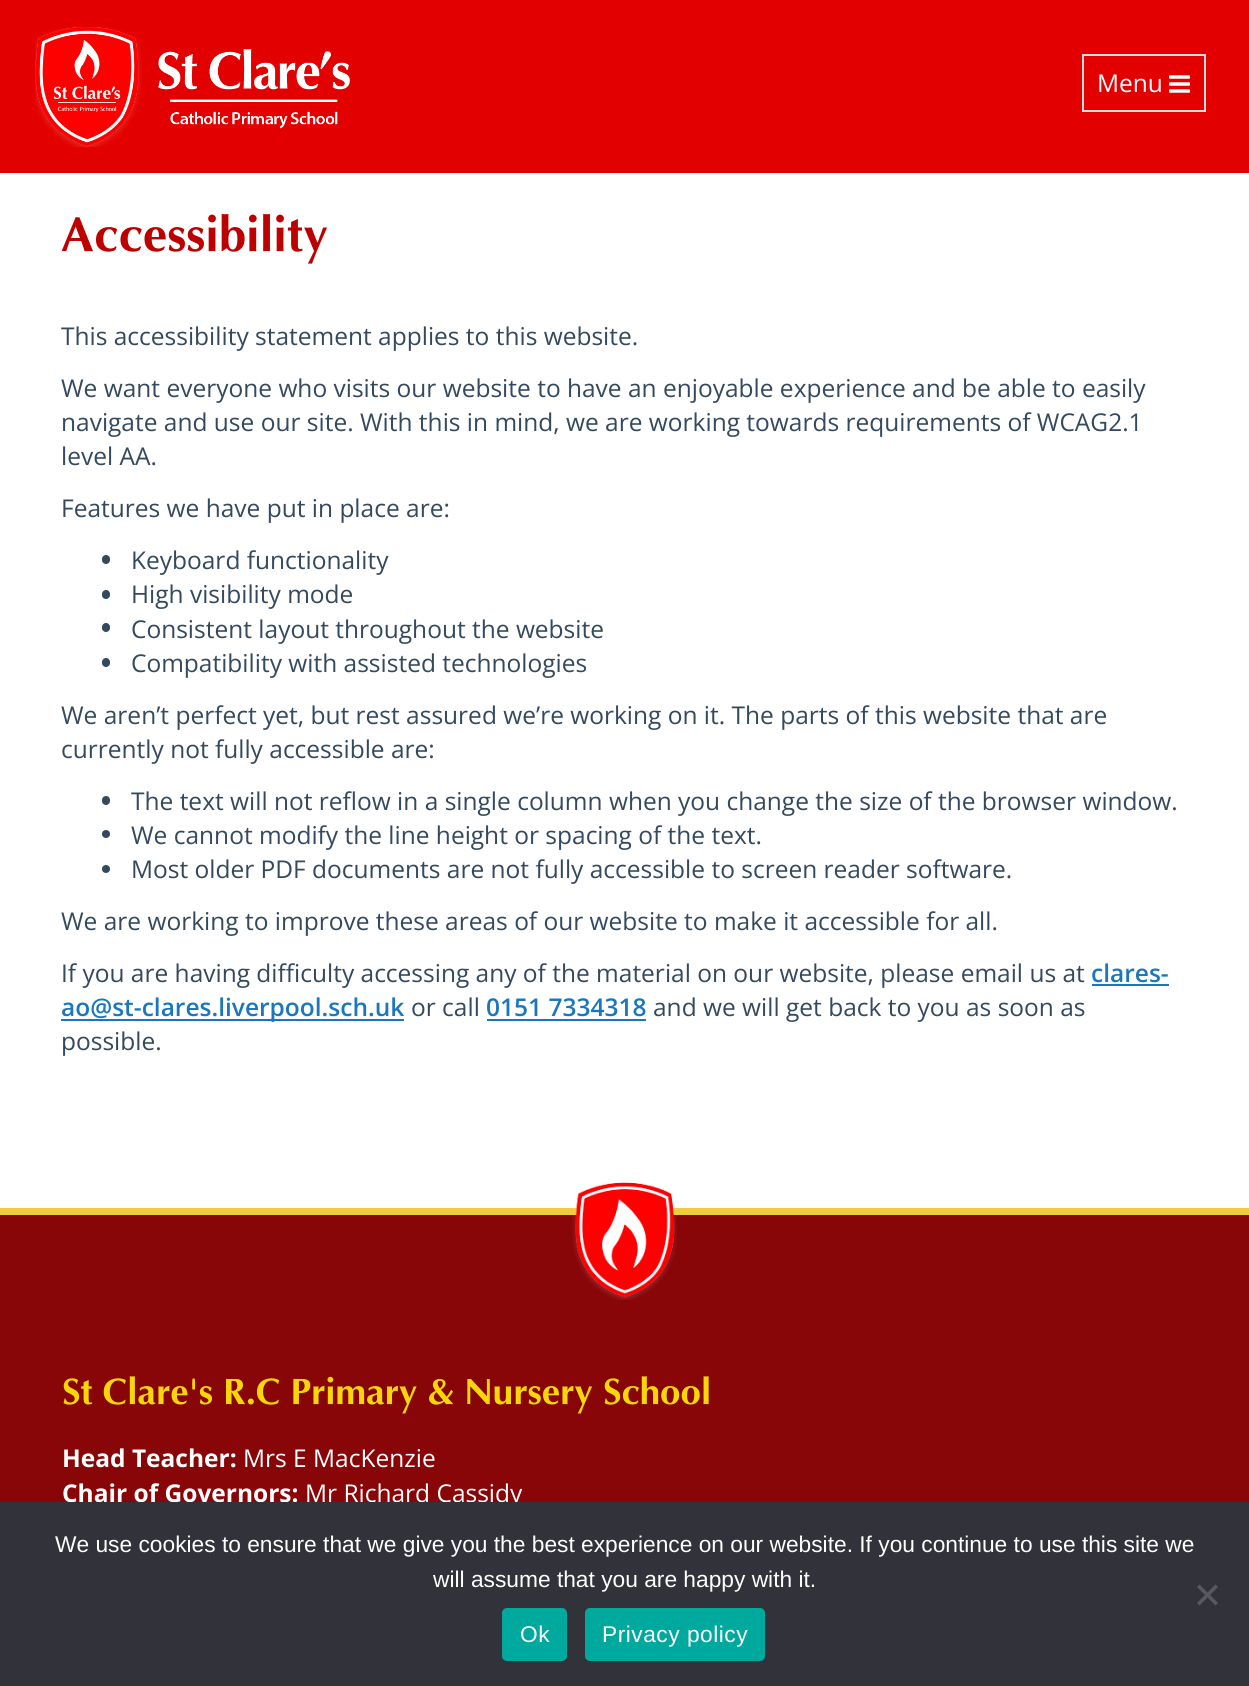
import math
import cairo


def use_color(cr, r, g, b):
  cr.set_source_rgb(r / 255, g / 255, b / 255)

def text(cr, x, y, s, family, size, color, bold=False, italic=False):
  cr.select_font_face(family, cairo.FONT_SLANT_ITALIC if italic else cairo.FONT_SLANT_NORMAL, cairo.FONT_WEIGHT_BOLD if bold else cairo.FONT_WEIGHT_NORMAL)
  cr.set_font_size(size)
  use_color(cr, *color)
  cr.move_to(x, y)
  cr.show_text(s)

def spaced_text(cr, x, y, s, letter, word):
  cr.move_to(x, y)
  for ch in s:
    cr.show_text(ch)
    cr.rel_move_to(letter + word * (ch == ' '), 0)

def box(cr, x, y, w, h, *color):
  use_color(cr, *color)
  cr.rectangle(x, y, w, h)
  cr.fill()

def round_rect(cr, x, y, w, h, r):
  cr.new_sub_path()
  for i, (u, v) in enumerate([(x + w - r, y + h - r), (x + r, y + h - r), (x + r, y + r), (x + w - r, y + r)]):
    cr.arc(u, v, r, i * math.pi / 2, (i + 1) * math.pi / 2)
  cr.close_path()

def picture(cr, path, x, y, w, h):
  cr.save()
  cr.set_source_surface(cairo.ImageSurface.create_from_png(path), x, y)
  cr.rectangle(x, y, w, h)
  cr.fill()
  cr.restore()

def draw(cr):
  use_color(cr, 255, 255, 255)
  cr.paint()
  box(cr, 0, 0, 1249, 173, 227, 0, 0)
  picture(cr, "img_01.png", 35, 27, 315, 120)
  cr.rectangle(1083, 55, 122, 56)
  use_color(cr, 221, 221, 221)
  cr.stroke()
  picture(cr, "img_02.png", 1169, 75, 21, 18)
  use_color(cr, 52, 73, 94)
  round_rect(cr, 102, 555, 8, 9, 4)
  cr.fill()
  round_rect(cr, 102, 590, 8, 9, 4)
  cr.fill()
  round_rect(cr, 102, 623, 8, 9, 4)
  cr.fill()
  round_rect(cr, 102, 658, 8, 9, 4)
  cr.fill()
  round_rect(cr, 102, 796, 8, 9, 4)
  cr.fill()
  cr.arc(106, 834, 4, 0, 2 * math.pi)
  cr.fill()
  cr.arc(106, 869, 4, 0, 2 * math.pi)
  cr.fill()
  box(cr, 1092, 984, 77, 2, 26, 119, 189)
  box(cr, 61, 1019, 343, 2, 26, 119, 189)
  box(cr, 487, 1019, 159, 2, 26, 119, 189)
  box(cr, 0, 1215, 1249, 287, 136, 5, 8)
  box(cr, 0, 1208, 1249, 7, 240, 205, 58)
  picture(cr, "img_03.png", 572, 1182, 105, 118)
  text(cr, 1097, 92, "Menu", "Open Sans", 24.5, (255, 255, 255))
  text(cr, 61, 251, "Accessibility", "Optima", 49, (189, 0, 0), bold=True)
  text(cr, 61, 345, "This accessibility statement applies to this website.", "Open Sans", 24.5, (52, 73, 94))
  text(cr, 61, 397, "We want everyone who visits our website to have an enjoyable experience and be able to easily", "Open Sans", 24.5, (52, 73, 94))
  text(cr, 61, 431, "navigate and use our site. With this in mind, we are working towards requirements of WCAG2.1", "Open Sans", 24.5, (52, 73, 94))
  text(cr, 61, 465, "level AA.", "Open Sans", 24.5, (52, 73, 94))
  text(cr, 61, 517, "Features we have put in place are:", "Open Sans", 24.5, (52, 73, 94))
  text(cr, 131, 569, "Keyboard functionality", "Open Sans", 24.5, (52, 73, 94))
  text(cr, 131, 603, "High visibility mode", "Open Sans", 24.5, (52, 73, 94))
  text(cr, 131, 638, "Consistent layout throughout the website", "Open Sans", 24.5, (52, 73, 94))
  text(cr, 131, 672, "Compatibility with assisted technologies", "Open Sans", 24.5, (52, 73, 94))
  text(cr, 61, 724, "We aren’t perfect yet, but rest assured we’re working on it. The parts of this website that are", "Open Sans", 24.5, (52, 73, 94))
  text(cr, 61, 758, "currently not fully accessible are:", "Open Sans", 24.5, (52, 73, 94))
  text(cr, 131, 810, "The text will not reflow in a single column when you change the size of the browser window.", "Open Sans", 24.5, (52, 73, 94))
  text(cr, 131, 844, "We cannot modify the line height or spacing of the text.", "Open Sans", 24.5, (52, 73, 94))
  text(cr, 131, 878, "Most older PDF documents are not fully accessible to screen reader software.", "Open Sans", 24.5, (52, 73, 94))
  text(cr, 61, 930, "We are working to improve these areas of our website to make it accessible for all.", "Open Sans", 24.5, (52, 73, 94))
  text(cr, 61, 982, "If you are having difficulty accessing any of the material on our website, please email us at", "Open Sans", 24.5, (52, 73, 94))
  text(cr, 1091, 982, "clares-", "Open Sans SemiBold", 24.5, (26, 119, 189))
  text(cr, 61, 1016, "ao@st-clares.liverpool.sch.uk", "Open Sans SemiBold", 24.5, (26, 119, 189))
  text(cr, 411, 1016, "or call", "Open Sans", 24.5, (52, 73, 94))
  text(cr, 486, 1016, "0151 7334318", "Open Sans SemiBold", 24.5, (26, 119, 189))
  text(cr, 653, 1016, "and we will get back to you as soon as", "Open Sans", 24.5, (52, 73, 94))
  text(cr, 61, 1050, "possible.", "Open Sans", 24.5, (52, 73, 94))
  text(cr, 62, 1404, "St Clare's R.C Primary & Nursery School", "Optima", 36.75, (248, 214, 9), bold=True)
  text(cr, 62, 1467, "Head Teacher:", "Open Sans", 24.5, (255, 255, 255), bold=True)
  text(cr, 243, 1467, "Mrs E MacKenzie", "Open Sans", 24.5, (255, 255, 255))
  text(cr, 62, 1502, "Chair of Governors:", "Open Sans", 24.5, (255, 255, 255), bold=True)
  text(cr, 305, 1502, "Mr Richard Cassidy", "Open Sans", 24.5, (255, 255, 255))
  box(cr, 0, 1502, 1249, 184, 50, 50, 58)
  text(cr, 55, 1552, "We use cookies to ensure that we give you the best experience on our website. If you continue to use this site we", "Liberation Sans", 22.75, (255, 255, 255))
  text(cr, 433, 1587, "will assume that you are happy with it.", "Liberation Sans", 22.75, (255, 255, 255))
  use_color(cr, 89, 89, 93)
  cr.new_path()
  cr.move_to(1215.5, 1584.5)
  cr.line_to(1218, 1587)
  cr.line_to(1199.5, 1605.5)
  cr.line_to(1197, 1603)
  cr.close_path()
  cr.fill()
  cr.new_path()
  cr.move_to(1197, 1587)
  cr.line_to(1199.5, 1584.5)
  cr.line_to(1218, 1603)
  cr.line_to(1215.5, 1605.5)
  cr.close_path()
  cr.fill()
  use_color(cr, 0, 169, 157)
  round_rect(cr, 502, 1608, 65, 53, 5)
  cr.fill()
  use_color(cr, 255, 255, 255)
  spaced_text(cr, 520, 1642, "Ok", 0.5, 0)
  use_color(cr, 0, 169, 157)
  round_rect(cr, 585, 1608, 180, 53, 5)
  cr.fill()
  use_color(cr, 255, 255, 255)
  spaced_text(cr, 602, 1642, "Privacy policy", 0.5, 0)


surface = cairo.ImageSurface(cairo.FORMAT_RGB24, 1249, 1686)
cr = cairo.Context(surface)
options = cairo.FontOptions()
options.set_hint_metrics(cairo.HINT_METRICS_OFF)
options.set_hint_style(cairo.HINT_STYLE_NONE)
cr.set_font_options(options)
cr.set_miter_limit(4)
draw(cr)
surface.write_to_png("out.png")
